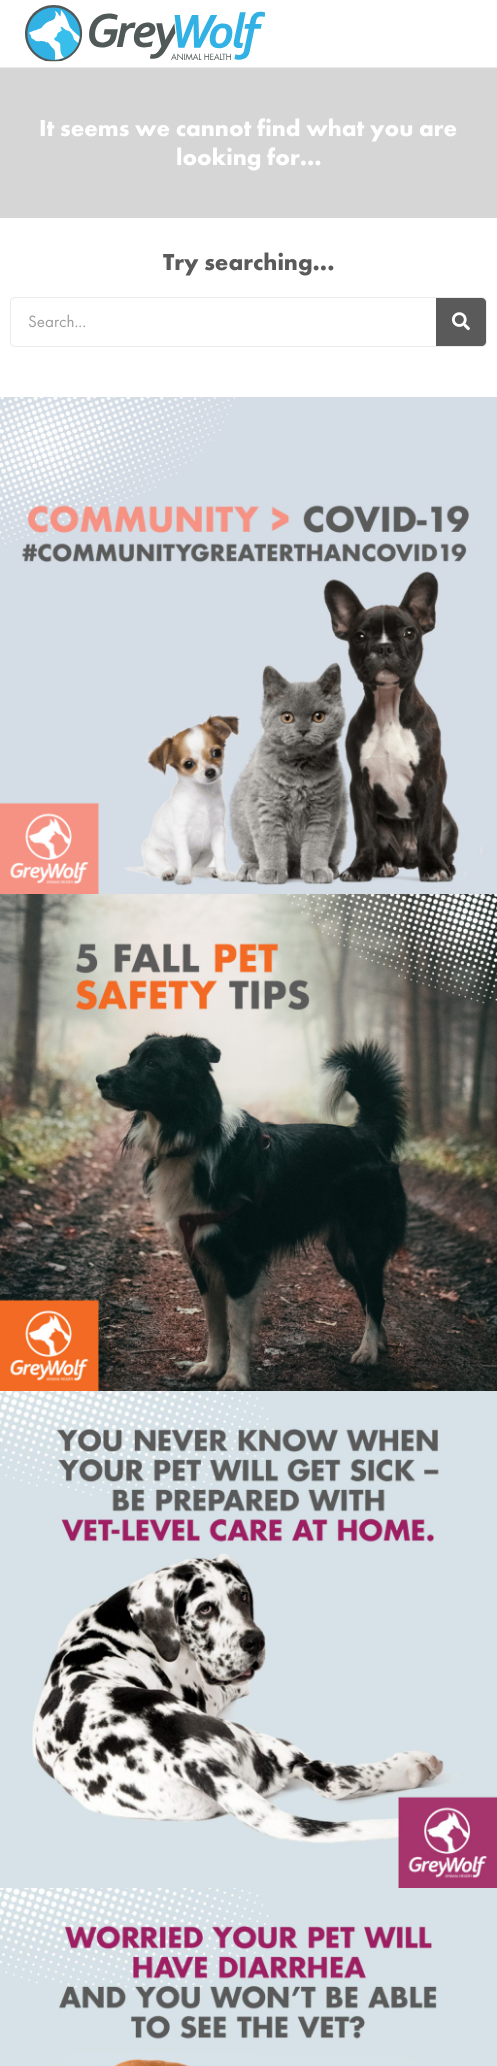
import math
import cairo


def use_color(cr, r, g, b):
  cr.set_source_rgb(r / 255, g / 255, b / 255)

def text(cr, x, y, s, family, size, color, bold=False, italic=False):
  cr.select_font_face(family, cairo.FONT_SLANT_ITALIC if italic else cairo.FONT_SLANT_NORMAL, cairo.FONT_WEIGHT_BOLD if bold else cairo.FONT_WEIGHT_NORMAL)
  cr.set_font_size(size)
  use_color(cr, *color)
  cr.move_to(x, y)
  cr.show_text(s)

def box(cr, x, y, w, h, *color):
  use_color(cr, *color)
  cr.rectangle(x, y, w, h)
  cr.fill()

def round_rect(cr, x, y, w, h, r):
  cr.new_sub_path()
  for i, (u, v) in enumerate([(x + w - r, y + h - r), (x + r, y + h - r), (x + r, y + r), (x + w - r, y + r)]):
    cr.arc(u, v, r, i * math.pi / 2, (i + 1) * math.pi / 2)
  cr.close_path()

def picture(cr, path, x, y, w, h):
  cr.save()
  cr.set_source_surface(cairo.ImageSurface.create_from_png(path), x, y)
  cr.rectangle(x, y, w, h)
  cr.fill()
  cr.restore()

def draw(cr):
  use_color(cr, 255, 255, 255)
  cr.paint()
  box(cr, 0, 67, 497, 1, 235, 233, 233)
  picture(cr, "img_01.png", 25, 5, 240, 57)
  box(cr, 0, 68, 497, 150, 214, 214, 214)
  round_rect(cr, 10.5, 297.5, 476, 49, 4.5)
  use_color(cr, 235, 233, 233)
  cr.set_line_width(1)
  cr.stroke()
  use_color(cr, 90, 90, 90)
  cr.new_path()
  cr.move_to(436, 298)
  cr.line_to(482, 298)
  cr.curve_to(484, 298, 486, 300, 486, 302)
  cr.line_to(486, 342)
  cr.curve_to(486, 344, 484, 346, 482, 346)
  cr.line_to(436, 346)
  cr.close_path()
  cr.fill()
  picture(cr, "img_02.png", 452, 312, 18, 19)
  picture(cr, "img_03.png", 0, 397, 497, 497)
  picture(cr, "img_04.png", 0, 894, 497, 497)
  picture(cr, "img_05.png", 0, 1391, 497, 497)
  picture(cr, "img_06.png", 0, 1888, 497, 178)
  text(cr, 39, 136, "It seems we cannot find what you are", "Futura PT", 24, (255, 255, 255), bold=True)
  text(cr, 176, 165, "looking for...", "Futura PT", 24, (255, 255, 255), bold=True)
  text(cr, 163, 270, "Try searching...", "Futura PT", 24, (90, 90, 90), bold=True)
  text(cr, 28, 327, "Search...", "Futura PT", 17, (156, 156, 156))


surface = cairo.ImageSurface(cairo.FORMAT_RGB24, 497, 2066)
cr = cairo.Context(surface)
options = cairo.FontOptions()
options.set_hint_metrics(cairo.HINT_METRICS_OFF)
options.set_hint_style(cairo.HINT_STYLE_NONE)
cr.set_font_options(options)
cr.set_miter_limit(4)
draw(cr)
surface.write_to_png("out.png")
